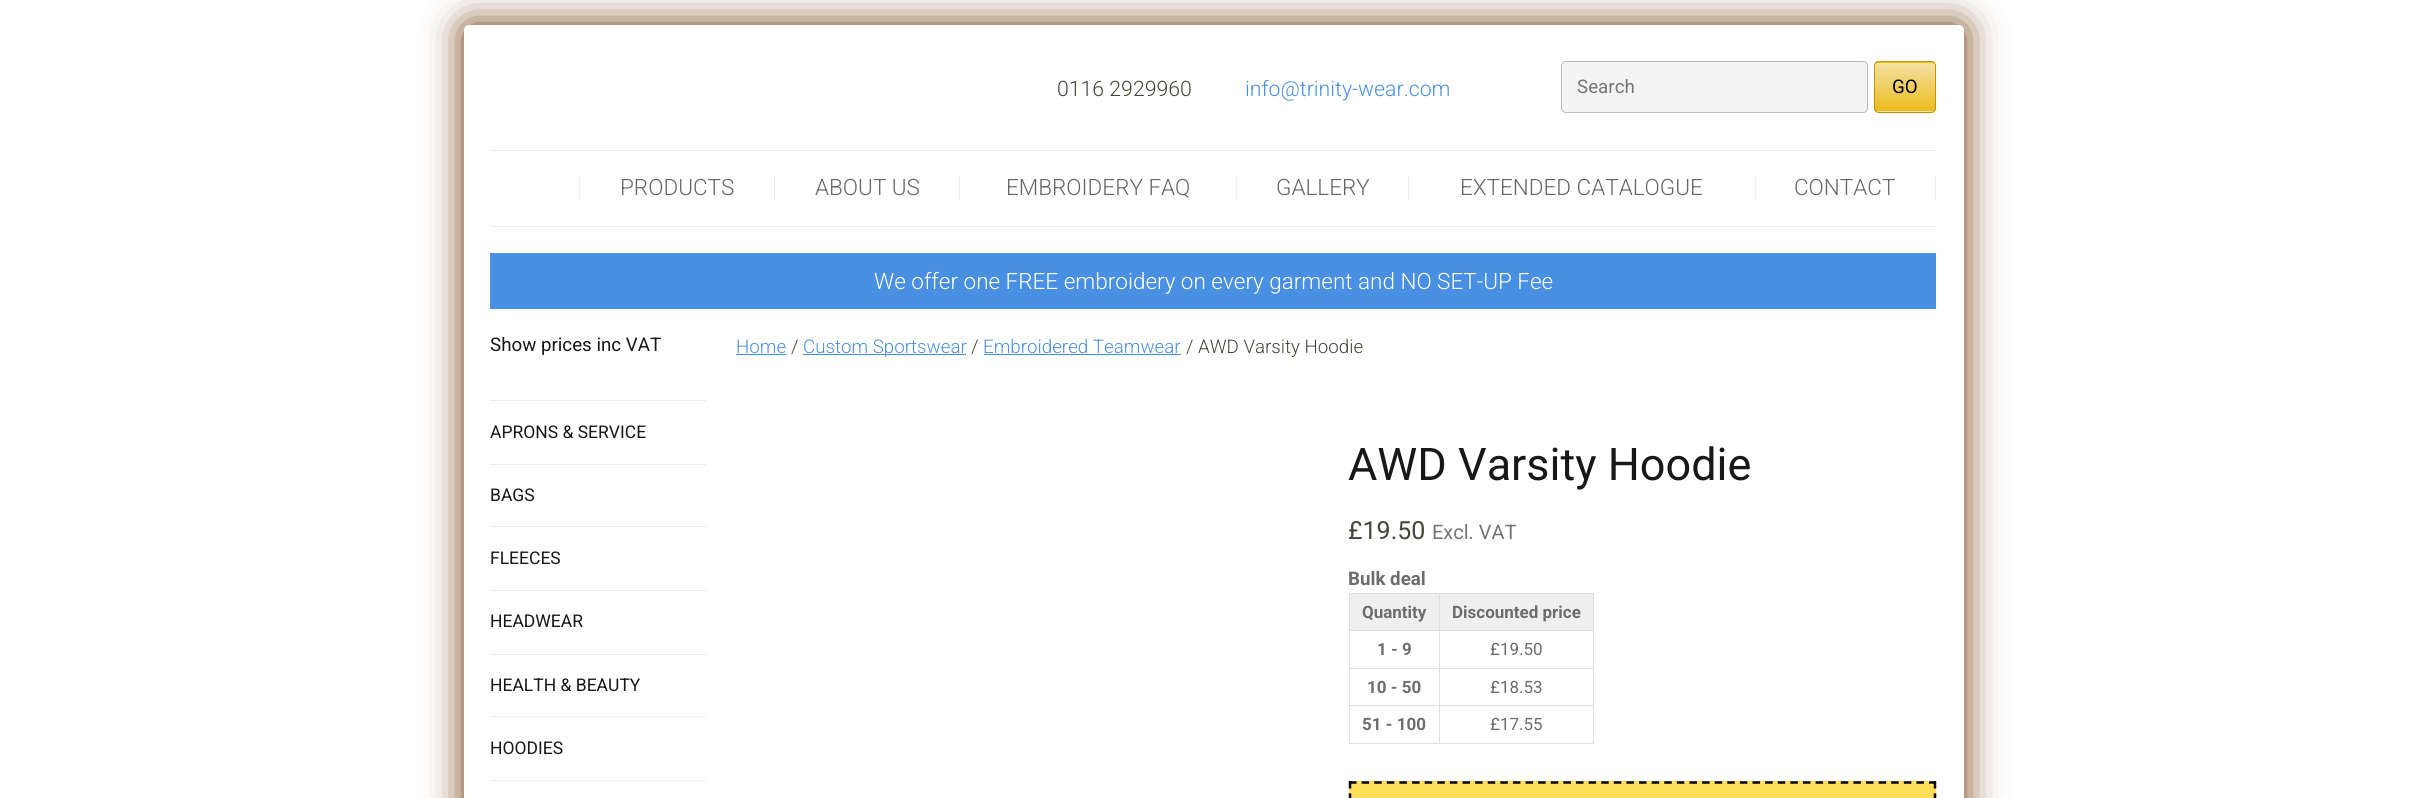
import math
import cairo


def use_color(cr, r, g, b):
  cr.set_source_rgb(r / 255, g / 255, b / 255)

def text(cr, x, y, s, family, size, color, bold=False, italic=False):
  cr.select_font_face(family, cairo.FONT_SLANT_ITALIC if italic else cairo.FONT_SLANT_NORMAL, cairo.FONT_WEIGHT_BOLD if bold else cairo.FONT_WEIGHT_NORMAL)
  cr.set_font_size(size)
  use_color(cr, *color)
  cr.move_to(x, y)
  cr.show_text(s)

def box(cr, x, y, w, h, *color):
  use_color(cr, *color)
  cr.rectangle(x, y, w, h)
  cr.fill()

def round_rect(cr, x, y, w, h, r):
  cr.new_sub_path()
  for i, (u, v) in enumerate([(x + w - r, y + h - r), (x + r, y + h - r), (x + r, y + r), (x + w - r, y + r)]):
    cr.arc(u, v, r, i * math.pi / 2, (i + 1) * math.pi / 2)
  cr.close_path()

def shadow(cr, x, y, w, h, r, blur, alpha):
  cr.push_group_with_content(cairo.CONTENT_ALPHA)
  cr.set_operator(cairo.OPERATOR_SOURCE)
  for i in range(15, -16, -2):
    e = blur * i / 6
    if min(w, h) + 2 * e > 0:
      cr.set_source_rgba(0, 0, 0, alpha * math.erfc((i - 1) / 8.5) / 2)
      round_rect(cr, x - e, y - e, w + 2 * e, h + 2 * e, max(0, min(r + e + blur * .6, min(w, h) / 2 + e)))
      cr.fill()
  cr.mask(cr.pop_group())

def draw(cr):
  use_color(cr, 255, 255, 255)
  cr.paint()
  use_color(cr, 102, 51, 0)
  shadow(cr, 464, 25, 1500, 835, 5, 19, 1)
  use_color(cr, 255, 255, 255)
  round_rect(cr, 464, 25, 1500, 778, 5)
  cr.fill()
  use_color(cr, 244, 244, 244)
  round_rect(cr, 1561.5, 61.5, 306, 51, 4.5)
  cr.fill_preserve()
  use_color(cr, 187, 187, 187)
  cr.set_line_width(1)
  cr.stroke()
  cr.save()
  round_rect(cr, 1874, 61, 62, 52, 5)
  cr.clip()
  gradient = cairo.LinearGradient(1905, 14, 1905, 63)
  gradient.add_color_stop_rgba(0, 0.961, 0.882, 0.635, 1)
  gradient.add_color_stop_rgba(1, 0.918, 0.733, 0.118, 1)
  cr.set_source(gradient)
  cr.rectangle(1874, 61, 62, 2)
  cr.fill()
  gradient = cairo.LinearGradient(1905, 63, 1905, 111)
  gradient.add_color_stop_rgba(0, 0.961, 0.882, 0.635, 1)
  gradient.add_color_stop_rgba(1, 0.918, 0.733, 0.118, 1)
  cr.set_source(gradient)
  cr.rectangle(1874, 63, 62, 48)
  cr.fill()
  gradient = cairo.LinearGradient(1905, 111, 1905, 160)
  gradient.add_color_stop_rgba(0, 0.961, 0.882, 0.635, 1)
  gradient.add_color_stop_rgba(1, 0.918, 0.733, 0.118, 1)
  cr.set_source(gradient)
  cr.rectangle(1874, 111, 62, 2)
  cr.fill()
  cr.restore()
  round_rect(cr, 1874.5, 61.5, 61, 51, 4.5)
  use_color(cr, 195, 148, 0)
  cr.stroke()
  box(cr, 490, 150, 1446, 1, 238, 238, 238)
  box(cr, 490, 226, 1446, 1, 238, 238, 238)
  box(cr, 579, 176, 1, 25, 238, 238, 238)
  box(cr, 774, 176, 1, 25, 238, 238, 238)
  box(cr, 959, 176, 1, 25, 238, 238, 238)
  box(cr, 1236, 176, 1, 25, 238, 238, 238)
  box(cr, 1408, 176, 1, 25, 238, 238, 238)
  box(cr, 1755, 176, 1, 25, 238, 238, 238)
  box(cr, 1935, 176, 1, 25, 238, 238, 238)
  box(cr, 490, 253, 1446, 56, 73, 144, 226)
  box(cr, 490, 400, 216, 1, 238, 238, 238)
  box(cr, 490, 464, 216, 1, 238, 238, 238)
  box(cr, 490, 526, 216, 1, 238, 238, 238)
  box(cr, 490, 590, 216, 1, 238, 238, 238)
  box(cr, 490, 654, 216, 1, 238, 238, 238)
  box(cr, 490, 716, 216, 1, 238, 238, 238)
  box(cr, 490, 780, 216, 1, 238, 238, 238)
  box(cr, 736, 354, 50, 1, 73, 144, 226)
  box(cr, 803, 354, 163, 1, 73, 144, 226)
  box(cr, 984, 354, 197, 1, 73, 144, 226)
  box(cr, 1350, 594, 243, 36, 239, 239, 239)
  box(cr, 1439, 593, 155, 1, 223, 223, 223)
  box(cr, 1439, 630, 155, 1, 223, 223, 223)
  box(cr, 1439, 668, 155, 1, 223, 223, 223)
  box(cr, 1439, 705, 155, 1, 223, 223, 223)
  box(cr, 1593, 705, 1, 39, 223, 223, 223)
  box(cr, 1439, 743, 155, 1, 223, 223, 223)
  box(cr, 1439, 705, 1, 39, 223, 223, 223)
  box(cr, 1349, 705, 91, 1, 223, 223, 223)
  box(cr, 1439, 668, 1, 38, 223, 223, 223)
  box(cr, 1349, 668, 91, 1, 223, 223, 223)
  box(cr, 1439, 630, 1, 39, 223, 223, 223)
  box(cr, 1349, 630, 91, 1, 223, 223, 223)
  box(cr, 1439, 593, 1, 38, 223, 223, 223)
  box(cr, 1349, 593, 91, 1, 223, 223, 223)
  box(cr, 1349, 743, 91, 1, 223, 223, 223)
  box(cr, 1349, 705, 1, 39, 223, 223, 223)
  box(cr, 1349, 668, 1, 38, 223, 223, 223)
  box(cr, 1349, 630, 1, 39, 223, 223, 223)
  box(cr, 1349, 593, 1, 38, 223, 223, 223)
  box(cr, 1593, 668, 1, 38, 223, 223, 223)
  box(cr, 1593, 630, 1, 39, 223, 223, 223)
  box(cr, 1593, 593, 1, 38, 223, 223, 223)
  box(cr, 1349, 781, 587, 17, 255, 222, 89)
  cr.new_path()
  cr.move_to(1349, 782.5)
  cr.line_to(1936, 782.5)
  use_color(cr, 0, 0, 0)
  cr.set_line_width(2.5)
  cr.set_dash([7.5, 5.11])
  cr.stroke()
  cr.new_path()
  cr.move_to(1935, 781)
  cr.line_to(1935, 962.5)
  cr.set_dash([7.5, 4.91])
  cr.stroke()
  cr.new_path()
  cr.move_to(1350, 781)
  cr.line_to(1350, 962.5)
  cr.stroke()
  text(cr, 1057, 96, "0116 2929960", "Roboto Light", 21.25, (70, 70, 55))
  text(cr, 1245, 96, "info@trinity-wear.com", "Roboto Light", 21.25, (73, 144, 226))
  text(cr, 1577, 93, "Search", "Roboto", 18.75, (117, 117, 117))
  text(cr, 1892, 93, "GO", "Roboto", 18.75, (0, 0, 0))
  text(cr, 620, 195, "PRODUCTS", "Roboto Light", 22.5, (102, 102, 102))
  text(cr, 815, 195, "ABOUT US", "Roboto Light", 22.5, (102, 102, 102))
  text(cr, 1006, 195, "EMBROIDERY FAQ", "Roboto Light", 22.5, (102, 102, 102))
  text(cr, 1276, 195, "GALLERY", "Roboto Light", 22.5, (102, 102, 102))
  text(cr, 1460, 195, "EXTENDED CATALOGUE", "Roboto Light", 22.5, (102, 102, 102))
  text(cr, 1794, 195, "CONTACT", "Roboto Light", 22.5, (102, 102, 102))
  text(cr, 874, 289, "We offer one FREE embroidery on every garment and NO SET-UP Fee", "Roboto Light", 22.5, (255, 255, 255))
  text(cr, 490, 351, "Show prices inc VAT", "Roboto", 18.75, (24, 24, 24))
  text(cr, 490, 438, "APRONS & SERVICE", "Roboto", 17.5, (24, 24, 24))
  text(cr, 490, 501, "BAGS", "Roboto", 17.5, (24, 24, 24))
  text(cr, 490, 564, "FLEECES", "Roboto", 17.5, (24, 24, 24))
  text(cr, 490, 627, "HEADWEAR", "Roboto", 17.5, (24, 24, 24))
  text(cr, 490, 691, "HEALTH & BEAUTY", "Roboto", 17.5, (24, 24, 24))
  text(cr, 490, 754, "HOODIES", "Roboto", 17.5, (24, 24, 24))
  text(cr, 736, 353, "Home", "Roboto Light", 18.75, (73, 144, 226))
  text(cr, 791, 353, "/", "Roboto Light", 18.75, (70, 70, 55))
  text(cr, 803, 353, "Custom Sportswear", "Roboto Light", 18.75, (73, 144, 226))
  text(cr, 971, 353, "/", "Roboto Light", 18.75, (70, 70, 55))
  text(cr, 983, 353, "Embroidered Teamwear", "Roboto Light", 18.75, (73, 144, 226))
  text(cr, 1186, 353, "/ AWD Varsity Hoodie", "Roboto Light", 18.75, (70, 70, 55))
  text(cr, 1348, 480, "AWD Varsity Hoodie", "Roboto", 45, (24, 24, 24))
  text(cr, 1348, 539, "£19.50", "Roboto", 25, (70, 70, 55))
  text(cr, 1432, 539, "Excl. VAT", "Roboto", 20, (117, 117, 117))
  text(cr, 1348, 585, "Bulk deal", "Roboto", 18.75, (109, 109, 109), bold=True)
  text(cr, 1362, 618, "Quantity", "Roboto", 17, (109, 109, 109), bold=True)
  text(cr, 1452, 618, "Discounted price", "Roboto", 17, (109, 109, 109), bold=True)
  text(cr, 1377, 655, "1 - 9", "Roboto", 17, (109, 109, 109), bold=True)
  text(cr, 1490, 655, "£19.50", "Roboto", 17, (109, 109, 109))
  text(cr, 1367, 693, "10 - 50", "Roboto", 17, (109, 109, 109), bold=True)
  text(cr, 1490, 693, "£18.53", "Roboto", 17, (109, 109, 109))
  text(cr, 1362, 730, "51 - 100", "Roboto", 17, (109, 109, 109), bold=True)
  text(cr, 1490, 730, "£17.55", "Roboto", 17, (109, 109, 109))


surface = cairo.ImageSurface(cairo.FORMAT_RGB24, 2426, 798)
cr = cairo.Context(surface)
options = cairo.FontOptions()
options.set_hint_metrics(cairo.HINT_METRICS_OFF)
options.set_hint_style(cairo.HINT_STYLE_NONE)
cr.set_font_options(options)
cr.set_miter_limit(4)
draw(cr)
surface.write_to_png("out.png")
